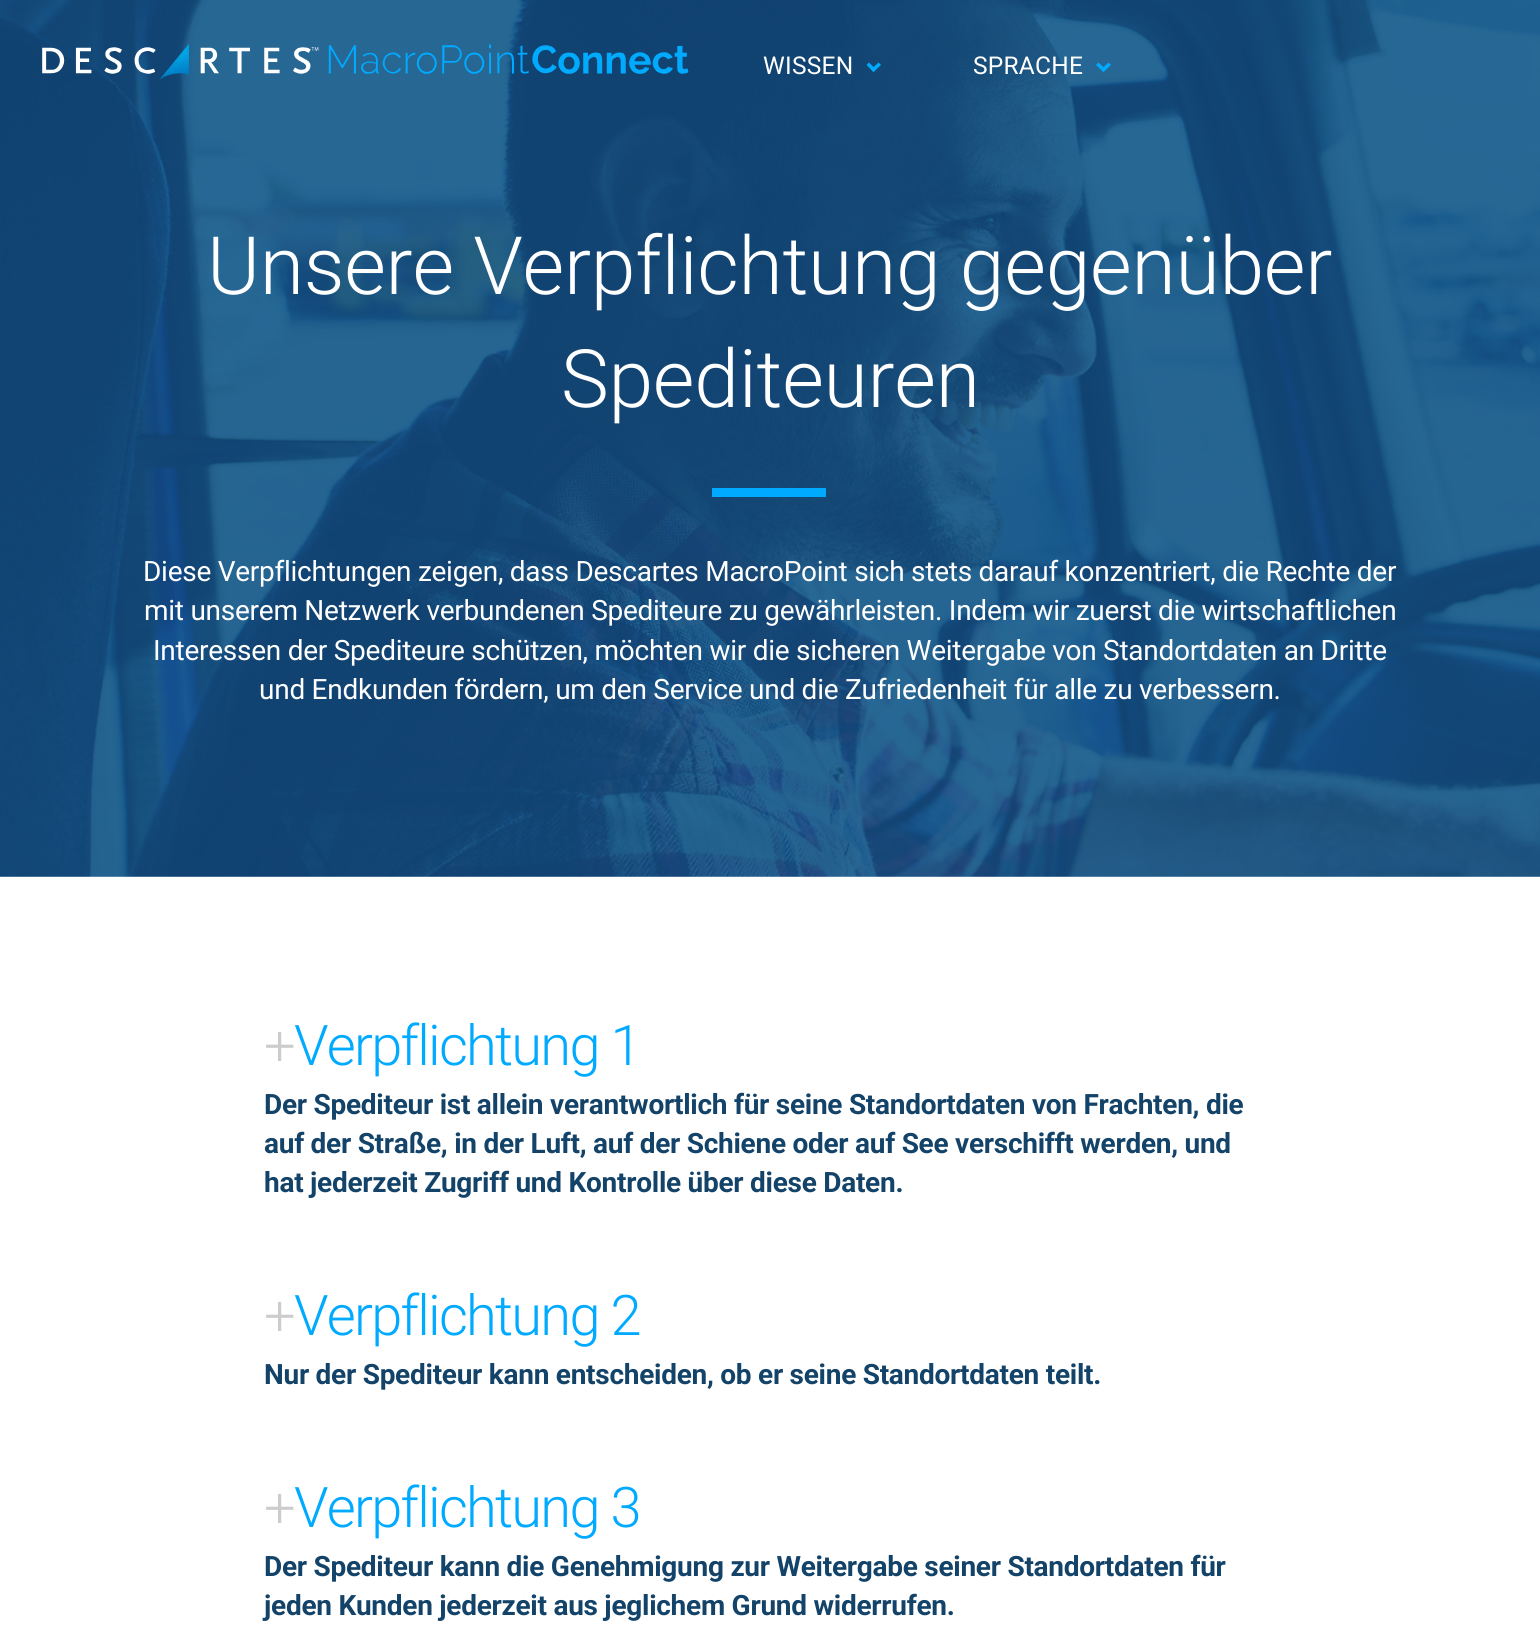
import math
import cairo


def use_color(cr, r, g, b):
  cr.set_source_rgb(r / 255, g / 255, b / 255)

def spaced_text(cr, x, y, s, letter, word):
  cr.move_to(x, y)
  for ch in s:
    cr.show_text(ch)
    cr.rel_move_to(letter + word * (ch == ' '), 0)

def box(cr, x, y, w, h, *color):
  use_color(cr, *color)
  cr.rectangle(x, y, w, h)
  cr.fill()

def picture(cr, path, x, y, w, h):
  cr.save()
  cr.set_source_surface(cairo.ImageSurface.create_from_png(path), x, y)
  cr.rectangle(x, y, w, h)
  cr.fill()
  cr.restore()

def draw(cr):
  use_color(cr, 255, 255, 255)
  cr.paint()
  picture(cr, "img_02.png", 0, 0, 1540, 877)
  picture(cr, "img_01.png", 42, 44, 647, 36)
  use_color(cr, 0, 170, 255)
  cr.new_path()
  cr.move_to(878.5, 62.5)
  cr.line_to(881, 65)
  cr.line_to(873.5, 72)
  cr.line_to(871, 69.5)
  cr.close_path()
  cr.fill()
  cr.new_path()
  cr.move_to(869, 62.5)
  cr.line_to(876, 69.5)
  cr.line_to(873.5, 72)
  cr.line_to(866.5, 65)
  cr.close_path()
  cr.fill()
  cr.new_path()
  cr.move_to(1108.5, 62.5)
  cr.line_to(1111, 65)
  cr.line_to(1103.5, 72)
  cr.line_to(1101, 69.5)
  cr.close_path()
  cr.fill()
  cr.new_path()
  cr.move_to(1098.5, 62.5)
  cr.line_to(1106, 69.5)
  cr.line_to(1103.5, 72)
  cr.line_to(1096, 65)
  cr.close_path()
  cr.fill()
  box(cr, 712, 488, 114, 9, 0, 170, 255)
  cr.select_font_face("Roboto")
  cr.set_font_size(24.5)
  use_color(cr, 255, 255, 255)
  spaced_text(cr, 763, 74, "WISSEN", 0.25, 0)
  spaced_text(cr, 973, 74, "SPRACHE", 0.25, 0)
  cr.select_font_face("Roboto Light")
  cr.set_font_size(80.5)
  spaced_text(cr, 207, 294, "Unsere Verpflichtung gegenüber", -0.26, 0)
  spaced_text(cr, 561, 407, "Spediteuren", -0.26, 0)
  cr.select_font_face("Roboto")
  cr.set_font_size(28)
  spaced_text(cr, 143, 581, "Diese Verpflichtungen zeigen, dass Descartes MacroPoint sich stets darauf konzentriert, die Rechte der", -0.26, 0)
  spaced_text(cr, 144, 620, "mit unserem Netzwerk verbundenen Spediteure zu gewährleisten. Indem wir zuerst die wirtschaftlichen", -0.26, 0)
  spaced_text(cr, 153, 660, "Interessen der Spediteure schützen, möchten wir die sicheren Weitergabe von Standortdaten an Dritte", -0.26, 0)
  spaced_text(cr, 259, 699, "und Endkunden fördern, um den Service und die Zufriedenheit für alle zu verbessern.", -0.26, 0)
  cr.select_font_face("Roboto Light")
  cr.set_font_size(56)
  use_color(cr, 204, 204, 204)
  spaced_text(cr, 264, 1065, "+", -1.75, 0)
  use_color(cr, 0, 170, 255)
  spaced_text(cr, 294, 1065, "Verpflichtung 1", -1.75, 0)
  cr.select_font_face("Roboto", cairo.FONT_SLANT_NORMAL, cairo.FONT_WEIGHT_BOLD)
  cr.set_font_size(28)
  use_color(cr, 19, 67, 105)
  spaced_text(cr, 264, 1114, "Der Spediteur ist allein verantwortlich für seine Standortdaten von Frachten, die", -0.26, 0)
  spaced_text(cr, 264, 1153, "auf der Straße, in der Luft, auf der Schiene oder auf See verschifft werden, und", -0.26, 0)
  spaced_text(cr, 264, 1192, "hat jederzeit Zugriff und Kontrolle über diese Daten.", -0.26, 0)
  cr.select_font_face("Roboto Light")
  cr.set_font_size(56)
  use_color(cr, 204, 204, 204)
  spaced_text(cr, 264, 1335, "+", -1.75, 0)
  use_color(cr, 0, 170, 255)
  spaced_text(cr, 294, 1335, "Verpflichtung 2", -1.75, 0)
  cr.select_font_face("Roboto", cairo.FONT_SLANT_NORMAL, cairo.FONT_WEIGHT_BOLD)
  cr.set_font_size(28)
  use_color(cr, 19, 67, 105)
  spaced_text(cr, 264, 1384, "Nur der Spediteur kann entscheiden, ob er seine Standortdaten teilt.", -0.26, 0)
  cr.select_font_face("Roboto Light")
  cr.set_font_size(56)
  use_color(cr, 204, 204, 204)
  spaced_text(cr, 264, 1527, "+", -1.75, 0)
  use_color(cr, 0, 170, 255)
  spaced_text(cr, 294, 1527, "Verpflichtung 3", -1.75, 0)
  cr.select_font_face("Roboto", cairo.FONT_SLANT_NORMAL, cairo.FONT_WEIGHT_BOLD)
  cr.set_font_size(28)
  use_color(cr, 19, 67, 105)
  spaced_text(cr, 264, 1576, "Der Spediteur kann die Genehmigung zur Weitergabe seiner Standortdaten für", -0.26, 0)
  spaced_text(cr, 264, 1615, "jeden Kunden jederzeit aus jeglichem Grund widerrufen.", -0.26, 0)


surface = cairo.ImageSurface(cairo.FORMAT_RGB24, 1540, 1628)
cr = cairo.Context(surface)
options = cairo.FontOptions()
options.set_hint_metrics(cairo.HINT_METRICS_OFF)
options.set_hint_style(cairo.HINT_STYLE_NONE)
cr.set_font_options(options)
cr.set_miter_limit(4)
draw(cr)
surface.write_to_png("out.png")
